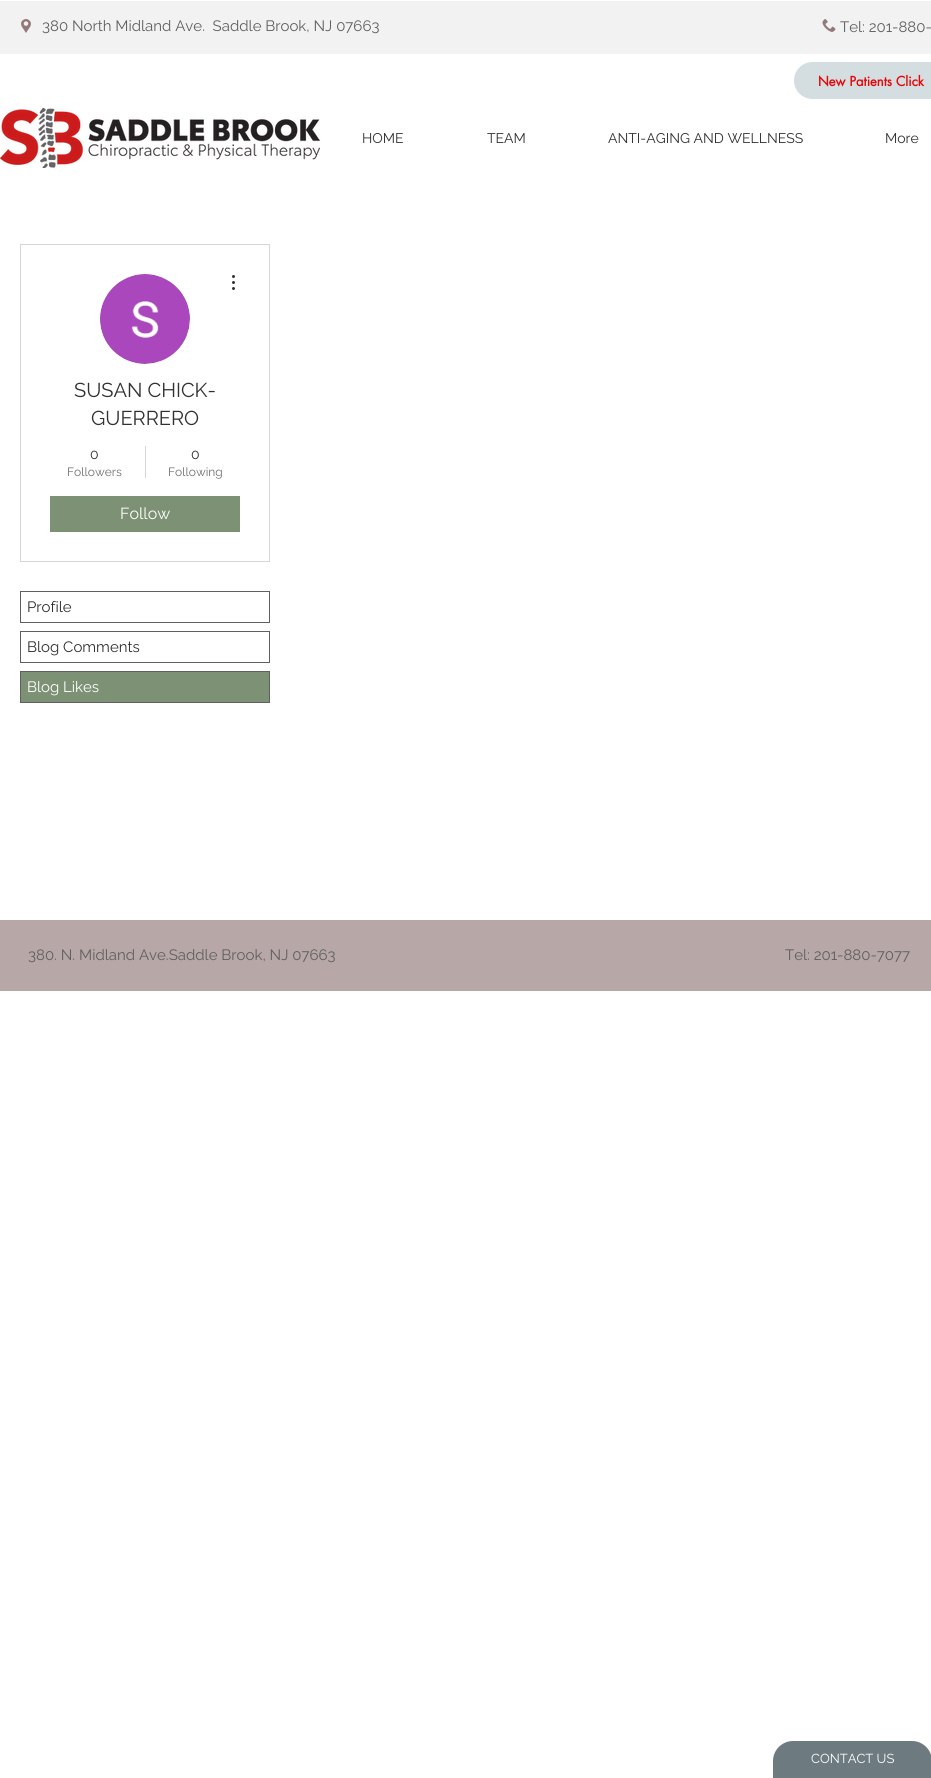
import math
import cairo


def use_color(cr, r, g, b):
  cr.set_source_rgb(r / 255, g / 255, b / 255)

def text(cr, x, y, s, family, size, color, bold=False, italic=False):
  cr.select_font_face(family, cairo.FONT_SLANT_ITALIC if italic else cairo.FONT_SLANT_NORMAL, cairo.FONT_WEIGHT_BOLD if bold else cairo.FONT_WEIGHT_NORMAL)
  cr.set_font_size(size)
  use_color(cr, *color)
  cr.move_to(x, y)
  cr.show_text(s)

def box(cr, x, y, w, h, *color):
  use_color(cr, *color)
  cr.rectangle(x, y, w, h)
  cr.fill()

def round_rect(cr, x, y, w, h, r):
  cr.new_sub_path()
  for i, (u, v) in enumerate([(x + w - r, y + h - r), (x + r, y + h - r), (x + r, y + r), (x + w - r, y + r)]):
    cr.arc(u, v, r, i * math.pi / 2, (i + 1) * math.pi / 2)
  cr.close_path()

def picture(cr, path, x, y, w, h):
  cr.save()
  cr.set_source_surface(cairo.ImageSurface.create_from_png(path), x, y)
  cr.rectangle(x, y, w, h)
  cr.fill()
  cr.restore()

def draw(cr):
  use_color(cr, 255, 255, 255)
  cr.paint()
  box(cr, 0, 1, 931, 53, 242, 242, 242)
  picture(cr, "img_01.png", 21, 19, 10, 14)
  picture(cr, "img_02.png", 822, 19, 14, 13)
  use_color(cr, 212, 221, 224)
  round_rect(cr, 794, 62, 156, 37, 18.5)
  cr.fill()
  picture(cr, "img_03.png", 0, 108, 320, 60)
  cr.rectangle(20.5, 244.5, 249, 317)
  use_color(cr, 214, 214, 214)
  cr.set_line_width(1)
  cr.stroke()
  use_color(cr, 216, 216, 216)
  cr.arc(145, 319, 45, 0, 2 * math.pi)
  cr.fill()
  picture(cr, "img_04.png", 100, 274, 90, 90)
  picture(cr, "img_05.png", 232, 275, 3, 15)
  box(cr, 145, 446, 1, 32, 214, 214, 214)
  box(cr, 50, 496, 190, 36, 125, 145, 116)
  cr.rectangle(20.5, 591.5, 249, 31)
  use_color(cr, 96, 96, 96)
  cr.stroke()
  cr.rectangle(20.5, 631.5, 249, 31)
  cr.stroke()
  use_color(cr, 125, 145, 116)
  cr.rectangle(20.5, 671.5, 249, 31)
  cr.fill_preserve()
  use_color(cr, 96, 96, 96)
  cr.stroke()
  box(cr, 0, 920, 931, 71, 183, 167, 167)
  use_color(cr, 109, 123, 129)
  cr.new_path()
  cr.move_to(793, 1741)
  cr.line_to(912, 1741)
  cr.curve_to(923, 1741, 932, 1750, 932, 1761)
  cr.line_to(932, 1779)
  cr.line_to(773, 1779)
  cr.line_to(773, 1761)
  cr.curve_to(773, 1750, 782, 1741, 793, 1741)
  cr.close_path()
  cr.fill()
  text(cr, 42, 31, "380 North Midland Ave.  Saddle Brook, NJ 07663", "Raleway", 15, (96, 96, 96))
  text(cr, 840, 32, "Tel: 201-880-", "Raleway", 15, (96, 96, 96))
  text(cr, 818, 86, "New Patients Click", "futura", 13, (232, 5, 5), bold=True)
  text(cr, 362, 143, "HOME", "Raleway", 14, (48, 48, 48))
  text(cr, 487, 143, "TEAM", "Raleway", 14, (48, 48, 48))
  text(cr, 608, 143, "ANTI-AGING AND WELLNESS", "Raleway", 14, (48, 48, 48))
  text(cr, 885, 143, "More", "Raleway", 14, (48, 48, 48))
  text(cr, 74, 397, "SUSAN CHICK-", "Raleway", 20, (48, 48, 48))
  text(cr, 91, 425, "GUERRERO", "Raleway", 20, (48, 48, 48))
  text(cr, 90, 459, "0", "Raleway", 14, (48, 48, 48))
  text(cr, 67, 476, "Followers", "Raleway", 12, (110, 110, 110))
  text(cr, 191, 459, "0", "Raleway", 14, (48, 48, 48))
  text(cr, 168, 476, "Following", "Raleway", 12, (110, 110, 110))
  text(cr, 120, 519, "Follow", "Raleway", 16, (255, 255, 255))
  text(cr, 27, 612, "Profile", "Raleway", 15, (48, 48, 48))
  text(cr, 27, 652, "Blog Comments", "Raleway", 15, (48, 48, 48))
  text(cr, 27, 692, "Blog Likes", "Raleway", 15, (255, 255, 255))
  text(cr, 28, 960, "380. N. Midland Ave.Saddle Brook, NJ 07663", "Raleway", 15, (96, 96, 96))
  text(cr, 785, 960, "Tel: 201-880-7077", "Raleway", 15, (96, 96, 96))
  text(cr, 811, 1763, "CONTACT US", "Raleway", 13, (255, 255, 255))


surface = cairo.ImageSurface(cairo.FORMAT_RGB24, 931, 1778)
cr = cairo.Context(surface)
options = cairo.FontOptions()
options.set_hint_metrics(cairo.HINT_METRICS_OFF)
options.set_hint_style(cairo.HINT_STYLE_NONE)
cr.set_font_options(options)
cr.set_miter_limit(4)
draw(cr)
surface.write_to_png("out.png")
